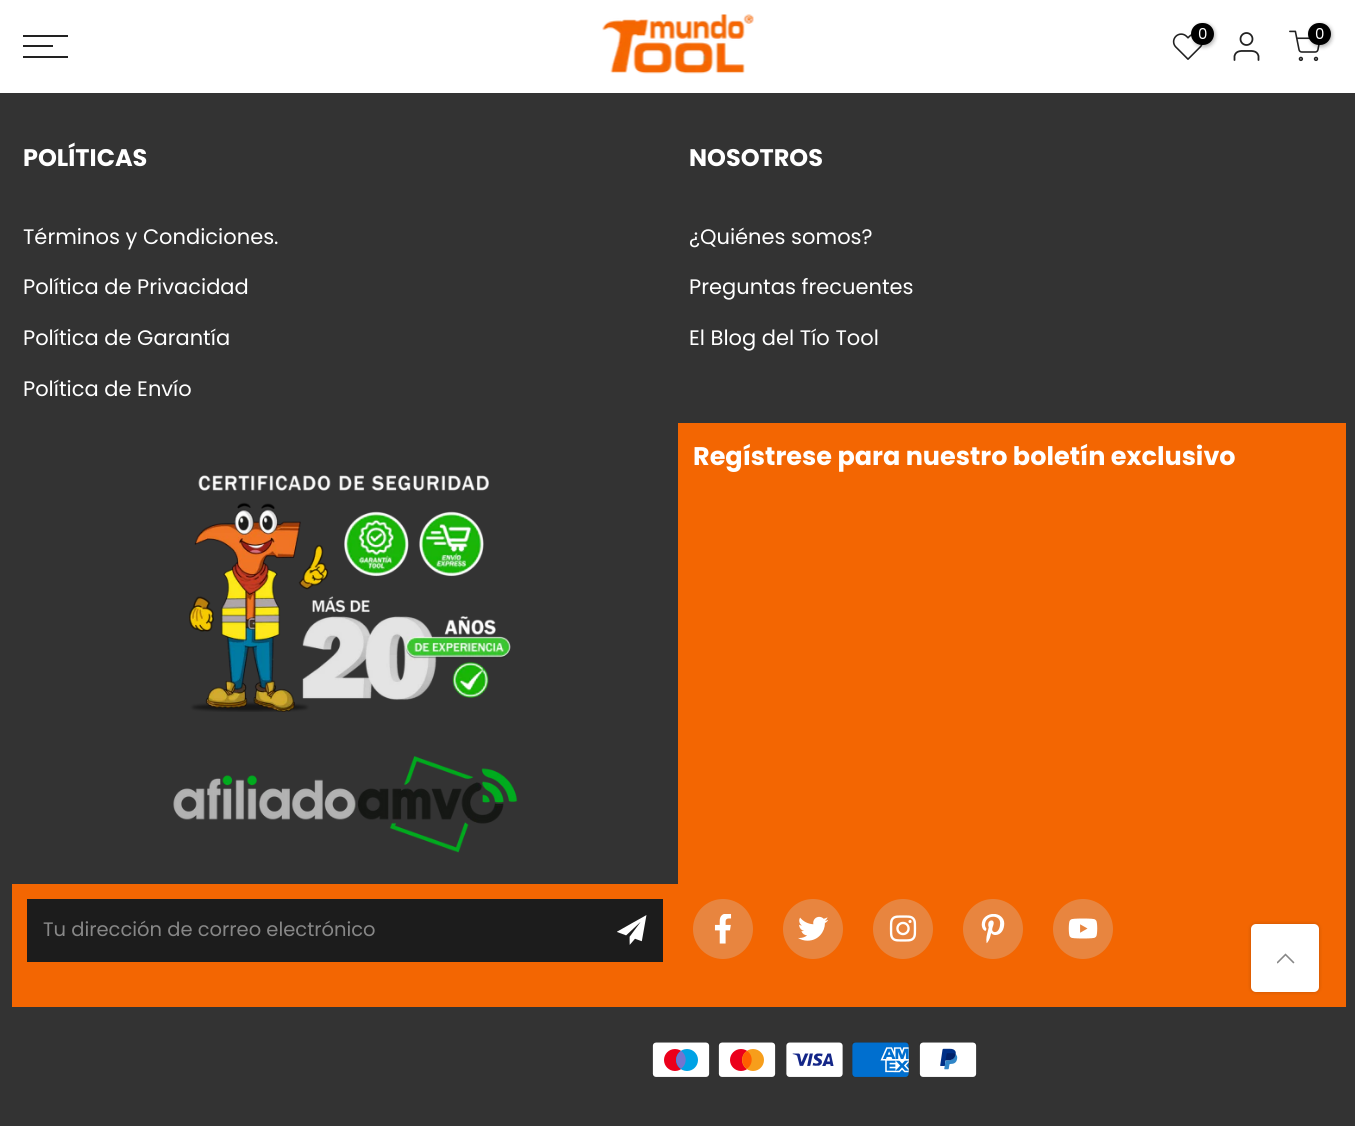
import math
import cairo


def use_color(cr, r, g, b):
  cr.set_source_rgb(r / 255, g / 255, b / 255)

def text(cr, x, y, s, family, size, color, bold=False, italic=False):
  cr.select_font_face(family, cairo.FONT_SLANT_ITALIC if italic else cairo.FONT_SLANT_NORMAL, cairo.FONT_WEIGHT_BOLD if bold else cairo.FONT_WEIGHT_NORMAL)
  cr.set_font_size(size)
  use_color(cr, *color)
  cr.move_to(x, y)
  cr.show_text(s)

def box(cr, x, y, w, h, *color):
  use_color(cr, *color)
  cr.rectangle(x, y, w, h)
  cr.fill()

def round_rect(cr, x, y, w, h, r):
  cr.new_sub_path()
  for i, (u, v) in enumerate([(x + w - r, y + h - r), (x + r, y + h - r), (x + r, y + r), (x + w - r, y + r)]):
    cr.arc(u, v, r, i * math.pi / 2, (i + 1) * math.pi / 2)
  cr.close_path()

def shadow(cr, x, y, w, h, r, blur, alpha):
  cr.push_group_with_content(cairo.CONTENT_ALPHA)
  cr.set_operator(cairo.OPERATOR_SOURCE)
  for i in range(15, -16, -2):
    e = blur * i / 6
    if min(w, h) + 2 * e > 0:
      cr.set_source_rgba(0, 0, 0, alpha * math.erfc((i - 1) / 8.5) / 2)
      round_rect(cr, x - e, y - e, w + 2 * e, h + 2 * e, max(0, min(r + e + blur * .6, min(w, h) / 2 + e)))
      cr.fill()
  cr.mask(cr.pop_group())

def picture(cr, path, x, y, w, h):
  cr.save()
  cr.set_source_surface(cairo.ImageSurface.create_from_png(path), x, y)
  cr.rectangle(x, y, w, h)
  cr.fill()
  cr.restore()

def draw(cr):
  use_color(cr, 51, 51, 51)
  cr.paint()
  box(cr, 0, 0, 1355, 93, 255, 255, 255)
  picture(cr, "img_01.png", 602, 14, 152, 60)
  picture(cr, "img_02.png", 1172, 33, 31, 27)
  use_color(cr, 0, 0, 0)
  shadow(cr, 1193, 24, 22, 23, 11, 2, 0.3)
  use_color(cr, 0, 0, 0)
  round_rect(cr, 1191, 23, 23, 22, 11)
  cr.fill()
  cr.arc(1246.5, 39, 6, 0, 2 * math.pi)
  use_color(cr, 34, 34, 34)
  cr.set_line_width(1.8)
  cr.stroke()
  cr.new_path()
  cr.move_to(1258.5, 60)
  cr.line_to(1258.5, 56)
  cr.curve_to(1257, 50, 1251, 51, 1246.5, 51)
  cr.curve_to(1242, 51, 1236, 50, 1234.5, 56)
  cr.line_to(1234.5, 60)
  cr.set_line_cap(cairo.LINE_CAP_ROUND)
  cr.set_line_join(cairo.LINE_JOIN_ROUND)
  cr.stroke()
  picture(cr, "img_03.png", 1289, 30, 31, 32)
  use_color(cr, 0, 0, 0)
  shadow(cr, 1310, 24, 22, 23, 11, 2, 0.3)
  use_color(cr, 0, 0, 0)
  round_rect(cr, 1308, 23, 23, 22, 11)
  cr.fill()
  box(cr, 23, 35, 45, 2, 34, 34, 34)
  box(cr, 23, 45, 30, 2, 34, 34, 34)
  box(cr, 23, 56, 45, 2, 34, 34, 34)
  box(cr, 678, 423, 668, 461, 243, 102, 2)
  picture(cr, "img_04.png", 189, 475, 322, 237)
  picture(cr, "img_05.png", 173, 756, 345, 97)
  box(cr, 12, 884, 1334, 123, 243, 102, 2)
  box(cr, 27, 899, 636, 63, 28, 28, 28)
  picture(cr, "img_06.png", 617, 915, 30, 30)
  use_color(cr, 232, 133, 63)
  cr.arc(723, 929, 30, 0, 2 * math.pi)
  cr.fill()
  picture(cr, "img_07.png", 714, 914, 18, 30)
  cr.arc(813, 929, 30, 0, 2 * math.pi)
  cr.fill()
  picture(cr, "img_08.png", 798, 916, 30, 25)
  cr.arc(903, 929, 30, 0, 2 * math.pi)
  cr.fill()
  picture(cr, "img_09.png", 889, 915, 28, 27)
  cr.arc(993, 929, 30, 0, 2 * math.pi)
  cr.fill()
  picture(cr, "img_10.png", 981, 914, 24, 30)
  cr.arc(1083, 929, 30, 0, 2 * math.pi)
  cr.fill()
  picture(cr, "img_11.png", 1068, 918, 30, 21)
  picture(cr, "img_12.png", 652, 1042, 58, 35)
  picture(cr, "img_13.png", 718, 1042, 58, 35)
  picture(cr, "img_14.png", 786, 1042, 57, 35)
  picture(cr, "img_15.png", 852, 1042, 57, 35)
  picture(cr, "img_16.png", 919, 1042, 58, 35)
  use_color(cr, 0, 0, 0)
  shadow(cr, 1251, 924, 68, 68, 5, 2, 0.2)
  use_color(cr, 255, 255, 255)
  round_rect(cr, 1251, 924, 68, 68, 5)
  cr.fill()
  picture(cr, "img_17.png", 1277, 953, 18, 11)
  text(cr, 1198, 39, "0", "Poppins", 15, (255, 255, 255))
  text(cr, 1315, 39, "0", "Poppins", 15, (255, 255, 255))
  text(cr, 23, 166, "POLÍTICAS", "Poppins", 24, (255, 255, 255), bold=True)
  text(cr, 23, 244, "Términos y Condiciones.", "Poppins", 21, (255, 255, 255))
  text(cr, 23, 294, "Política de Privacidad", "Poppins", 21, (255, 255, 255))
  text(cr, 23, 345, "Política de Garantía", "Poppins", 21, (255, 255, 255))
  text(cr, 23, 396, "Política de Envío", "Poppins", 21, (255, 255, 255))
  text(cr, 689, 166, "NOSOTROS", "Poppins", 24, (255, 255, 255), bold=True)
  text(cr, 689, 244, "¿Quiénes somos?", "Poppins", 21, (255, 255, 255))
  text(cr, 689, 294, "Preguntas frecuentes", "Poppins", 21, (255, 255, 255))
  text(cr, 689, 345, "El Blog del Tío Tool", "Poppins", 21, (255, 255, 255))
  text(cr, 693, 465, "Regístrese para nuestro boletín exclusivo", "Poppins", 25.5, (255, 255, 255), bold=True)
  text(cr, 43, 936, "Tu dirección de correo electrónico", "Poppins", 19.5, (135, 135, 135))


surface = cairo.ImageSurface(cairo.FORMAT_RGB24, 1355, 1126)
cr = cairo.Context(surface)
options = cairo.FontOptions()
options.set_hint_metrics(cairo.HINT_METRICS_OFF)
options.set_hint_style(cairo.HINT_STYLE_NONE)
cr.set_font_options(options)
cr.set_miter_limit(4)
draw(cr)
surface.write_to_png("out.png")
